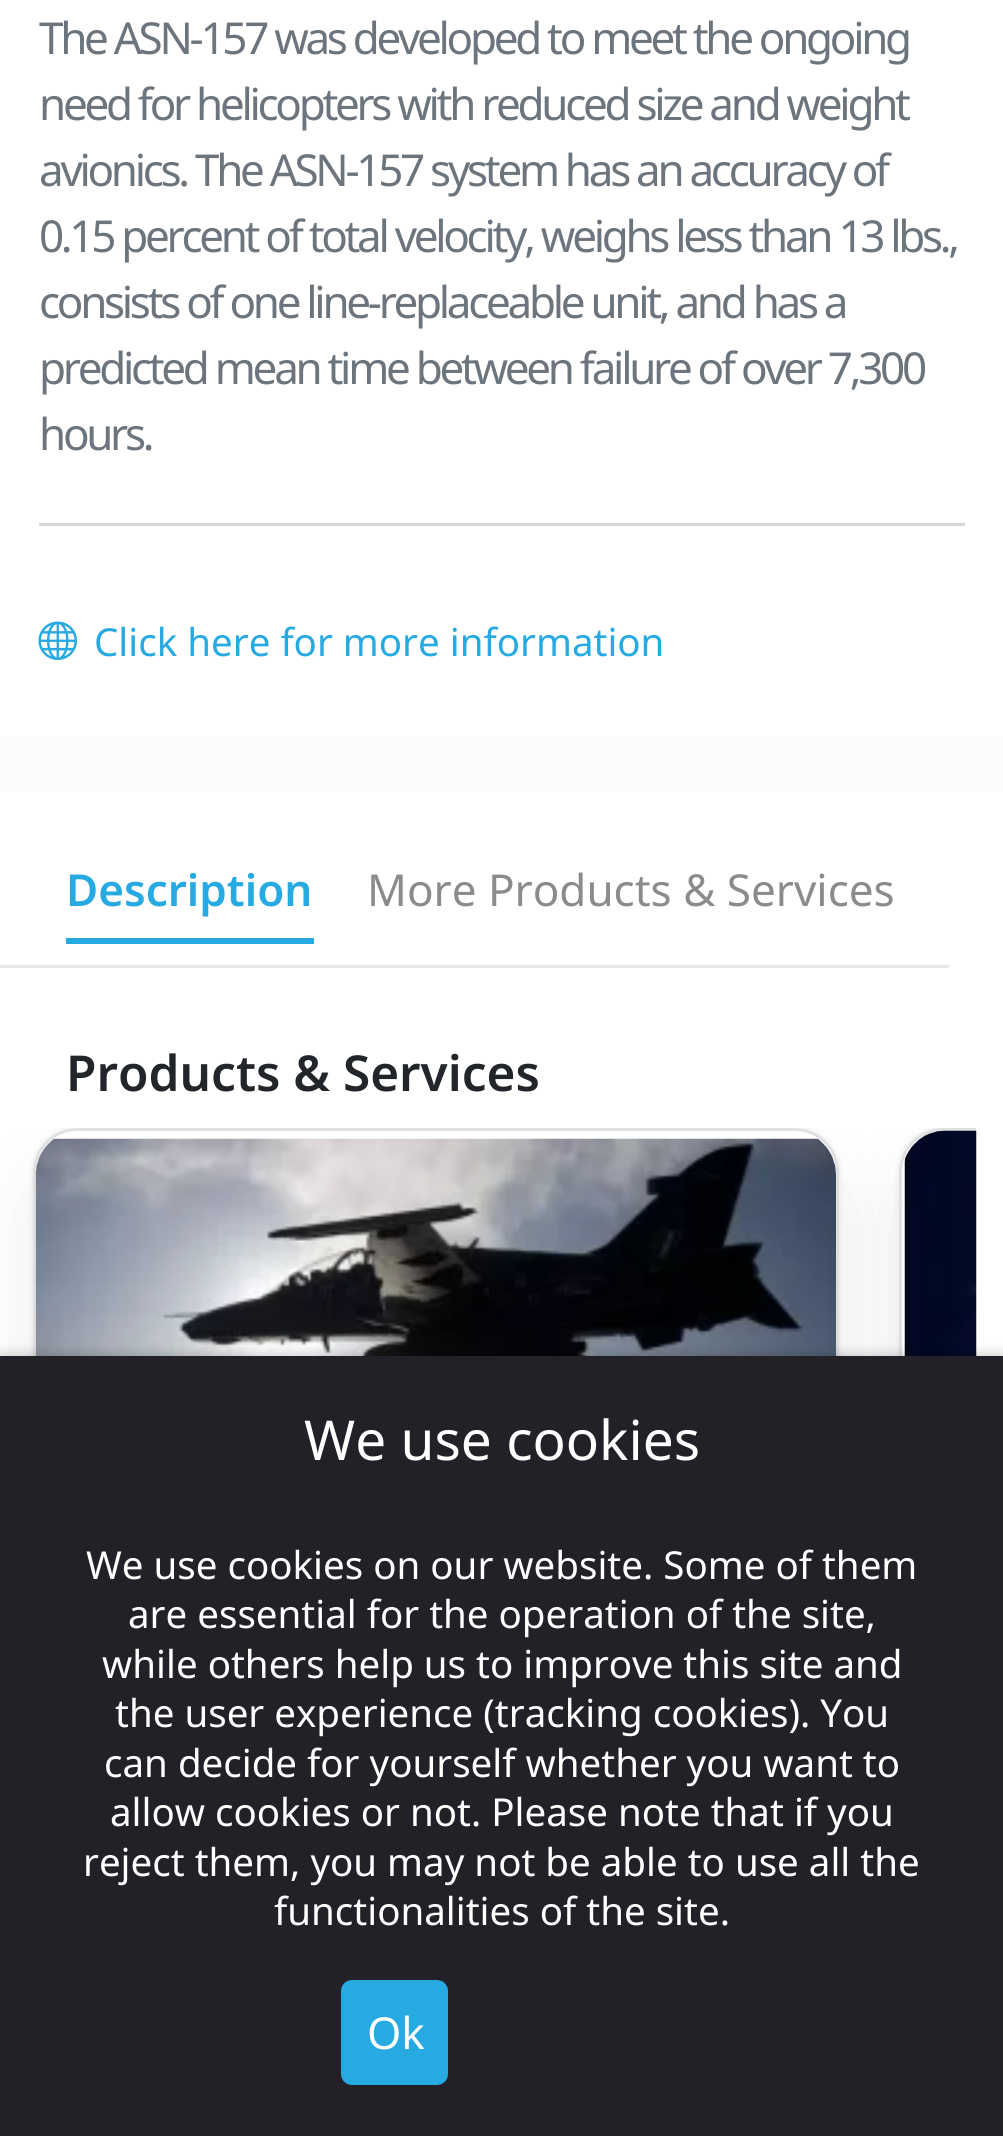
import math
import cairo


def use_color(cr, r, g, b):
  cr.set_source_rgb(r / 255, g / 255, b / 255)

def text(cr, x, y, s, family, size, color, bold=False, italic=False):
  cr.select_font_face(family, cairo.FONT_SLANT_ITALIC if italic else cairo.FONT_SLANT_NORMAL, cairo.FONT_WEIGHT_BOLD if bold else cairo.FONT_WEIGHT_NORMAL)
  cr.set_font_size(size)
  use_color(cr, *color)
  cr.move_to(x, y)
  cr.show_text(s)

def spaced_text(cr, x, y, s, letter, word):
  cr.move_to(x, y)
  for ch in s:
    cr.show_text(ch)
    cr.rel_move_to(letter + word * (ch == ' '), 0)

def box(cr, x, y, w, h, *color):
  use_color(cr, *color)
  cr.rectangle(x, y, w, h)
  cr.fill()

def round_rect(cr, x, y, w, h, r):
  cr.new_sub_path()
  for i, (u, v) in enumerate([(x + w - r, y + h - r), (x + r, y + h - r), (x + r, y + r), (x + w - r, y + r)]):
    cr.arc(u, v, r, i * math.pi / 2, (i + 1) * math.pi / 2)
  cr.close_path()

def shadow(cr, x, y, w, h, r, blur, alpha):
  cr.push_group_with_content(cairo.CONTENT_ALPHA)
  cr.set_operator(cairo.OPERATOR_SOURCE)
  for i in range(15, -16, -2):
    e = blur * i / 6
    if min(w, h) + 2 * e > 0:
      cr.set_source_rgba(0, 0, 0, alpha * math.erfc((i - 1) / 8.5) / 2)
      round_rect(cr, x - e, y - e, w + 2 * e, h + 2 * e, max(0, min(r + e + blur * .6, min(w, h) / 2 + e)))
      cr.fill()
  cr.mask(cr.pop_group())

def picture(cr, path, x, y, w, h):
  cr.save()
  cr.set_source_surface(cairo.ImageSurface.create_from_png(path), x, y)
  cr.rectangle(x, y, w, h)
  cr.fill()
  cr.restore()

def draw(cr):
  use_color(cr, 255, 255, 255)
  cr.paint()
  box(cr, 39, 523, 926, 3, 215, 215, 215)
  picture(cr, "img_01.png", 38, 621, 39, 39)
  box(cr, 0, 737, 1003, 55, 251, 251, 251)
  box(cr, 0, 965, 949, 3, 231, 231, 231)
  box(cr, 66, 938, 248, 6, 39, 169, 225)
  cr.save()
  cr.rectangle(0, 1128, 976, 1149)
  cr.clip()
  cr.set_fill_rule(cairo.FILL_RULE_EVEN_ODD)
  cr.new_path()
  cr.move_to(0, 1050)
  cr.line_to(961, 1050)
  cr.line_to(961, 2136)
  cr.line_to(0, 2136)
  cr.close_path()
  cr.move_to(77, 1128)
  cr.line_to(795, 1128)
  cr.curve_to(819.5, 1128, 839, 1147.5, 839, 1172)
  cr.line_to(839, 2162)
  cr.curve_to(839, 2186.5, 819.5, 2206, 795, 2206)
  cr.line_to(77, 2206)
  cr.curve_to(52.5, 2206, 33, 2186.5, 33, 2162)
  cr.line_to(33, 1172)
  cr.curve_to(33, 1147.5, 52.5, 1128, 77, 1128)
  cr.close_path()
  cr.clip()
  use_color(cr, 145, 158, 171)
  shadow(cr, 44, 1183, 784, 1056, 33, 44, 0.24)
  cr.restore()
  cr.save()
  cr.rectangle(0, 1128, 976, 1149)
  cr.clip()
  cr.set_fill_rule(cairo.FILL_RULE_EVEN_ODD)
  cr.new_path()
  cr.move_to(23, 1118)
  cr.line_to(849, 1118)
  cr.line_to(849, 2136)
  cr.line_to(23, 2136)
  cr.close_path()
  cr.move_to(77, 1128)
  cr.line_to(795, 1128)
  cr.curve_to(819.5, 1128, 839, 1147.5, 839, 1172)
  cr.line_to(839, 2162)
  cr.curve_to(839, 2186.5, 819.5, 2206, 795, 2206)
  cr.line_to(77, 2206)
  cr.curve_to(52.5, 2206, 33, 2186.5, 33, 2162)
  cr.line_to(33, 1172)
  cr.curve_to(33, 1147.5, 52.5, 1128, 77, 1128)
  cr.close_path()
  cr.clip()
  use_color(cr, 145, 158, 171)
  shadow(cr, 33, 1128, 806, 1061, 44, 3, 0.24)
  cr.restore()
  round_rect(cr, 34.5, 1129.5, 803, 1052, 42.5)
  use_color(cr, 224, 224, 224)
  cr.set_line_width(3)
  cr.stroke()
  picture(cr, "img_02.png", 35, 1138, 801, 218)
  cr.save()
  cr.rectangle(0, 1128, 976, 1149)
  cr.clip()
  cr.set_fill_rule(cairo.FILL_RULE_EVEN_ODD)
  cr.new_path()
  cr.move_to(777, 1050)
  cr.line_to(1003, 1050)
  cr.line_to(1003, 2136)
  cr.line_to(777, 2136)
  cr.close_path()
  cr.move_to(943, 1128)
  cr.line_to(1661, 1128)
  cr.curve_to(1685.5, 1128, 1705, 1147.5, 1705, 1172)
  cr.line_to(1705, 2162)
  cr.curve_to(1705, 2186.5, 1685.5, 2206, 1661, 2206)
  cr.line_to(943, 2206)
  cr.curve_to(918.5, 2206, 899, 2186.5, 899, 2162)
  cr.line_to(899, 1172)
  cr.curve_to(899, 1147.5, 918.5, 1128, 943, 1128)
  cr.close_path()
  cr.clip()
  use_color(cr, 145, 158, 171)
  shadow(cr, 910, 1183, 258, 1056, 33, 44, 0.24)
  cr.restore()
  cr.save()
  cr.rectangle(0, 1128, 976, 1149)
  cr.clip()
  cr.set_fill_rule(cairo.FILL_RULE_EVEN_ODD)
  cr.new_path()
  cr.move_to(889, 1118)
  cr.line_to(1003, 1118)
  cr.line_to(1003, 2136)
  cr.line_to(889, 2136)
  cr.close_path()
  cr.move_to(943, 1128)
  cr.line_to(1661, 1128)
  cr.curve_to(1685.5, 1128, 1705, 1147.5, 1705, 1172)
  cr.line_to(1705, 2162)
  cr.curve_to(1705, 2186.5, 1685.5, 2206, 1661, 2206)
  cr.line_to(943, 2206)
  cr.curve_to(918.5, 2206, 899, 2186.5, 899, 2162)
  cr.line_to(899, 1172)
  cr.curve_to(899, 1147.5, 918.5, 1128, 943, 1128)
  cr.close_path()
  cr.clip()
  use_color(cr, 145, 158, 171)
  shadow(cr, 899, 1128, 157, 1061, 44, 3, 0.24)
  cr.restore()
  cr.save()
  cr.rectangle(0, 1128, 976, 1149)
  cr.clip()
  round_rect(cr, 900.5, 1129.5, 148, 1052, 42.5)
  cr.stroke()
  cr.restore()
  picture(cr, "img_03.png", 904, 1130, 73, 226)
  use_color(cr, 0, 0, 0)
  shadow(cr, 0, 1356, 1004, 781, 0, 7, 0.25)
  box(cr, 0, 1356, 1003, 780, 34, 33, 40)
  use_color(cr, 39, 169, 225)
  round_rect(cr, 341, 1980, 107, 105, 11)
  cr.fill()
  cr.select_font_face("Noto Sans")
  cr.set_font_size(44)
  use_color(cr, 108, 117, 125)
  spaced_text(cr, 39, 54, "The ASN-157 was developed to meet the ongoing", -3.3, 0)
  spaced_text(cr, 39, 120, "need for helicopters with reduced size and weight", -3.3, 0)
  spaced_text(cr, 39, 186, "avionics. The ASN-157 system has an accuracy of", -3.3, 0)
  spaced_text(cr, 39, 252, "0.15 percent of total velocity, weighs less than 13 lbs.,", -3.3, 0)
  spaced_text(cr, 39, 318, "consists of one line-replaceable unit, and has a", -3.3, 0)
  spaced_text(cr, 39, 384, "predicted mean time between failure of over 7,300", -3.3, 0)
  spaced_text(cr, 39, 450, "hours.", -3.3, 0)
  text(cr, 94, 656, "Click here for more information", "Noto Sans", 38.5, (39, 169, 225))
  text(cr, 66, 906, "Description", "Noto Sans SemiBold", 44, (39, 169, 225))
  text(cr, 367, 906, "More Products & Services", "Noto Sans", 44, (139, 139, 139))
  text(cr, 66, 1091, "Products & Services", "Noto Sans SemiBold", 49.5, (34, 38, 42))
  text(cr, 304, 1460, "We use cookies", "Noto Sans", 55, (255, 255, 255))
  text(cr, 86, 1579, "We use cookies on our website. Some of them", "Noto Sans", 38.5, (255, 255, 255))
  text(cr, 128, 1628, "are essential for the operation of the site,", "Noto Sans", 38.5, (255, 255, 255))
  text(cr, 102, 1678, "while others help us to improve this site and", "Noto Sans", 38.5, (255, 255, 255))
  text(cr, 115, 1727, "the user experience (tracking cookies). You", "Noto Sans", 38.5, (255, 255, 255))
  text(cr, 104, 1777, "can decide for yourself whether you want to", "Noto Sans", 38.5, (255, 255, 255))
  text(cr, 110, 1826, "allow cookies or not. Please note that if you", "Noto Sans", 38.5, (255, 255, 255))
  text(cr, 83, 1876, "reject them, you may not be able to use all the", "Noto Sans", 38.5, (255, 255, 255))
  text(cr, 274, 1925, "functionalities of the site.", "Noto Sans", 38.5, (255, 255, 255))
  text(cr, 367, 2049, "Ok", "Noto Sans", 44, (255, 255, 255))


surface = cairo.ImageSurface(cairo.FORMAT_RGB24, 1003, 2136)
cr = cairo.Context(surface)
options = cairo.FontOptions()
options.set_hint_metrics(cairo.HINT_METRICS_OFF)
options.set_hint_style(cairo.HINT_STYLE_NONE)
cr.set_font_options(options)
cr.set_miter_limit(4)
draw(cr)
surface.write_to_png("out.png")
